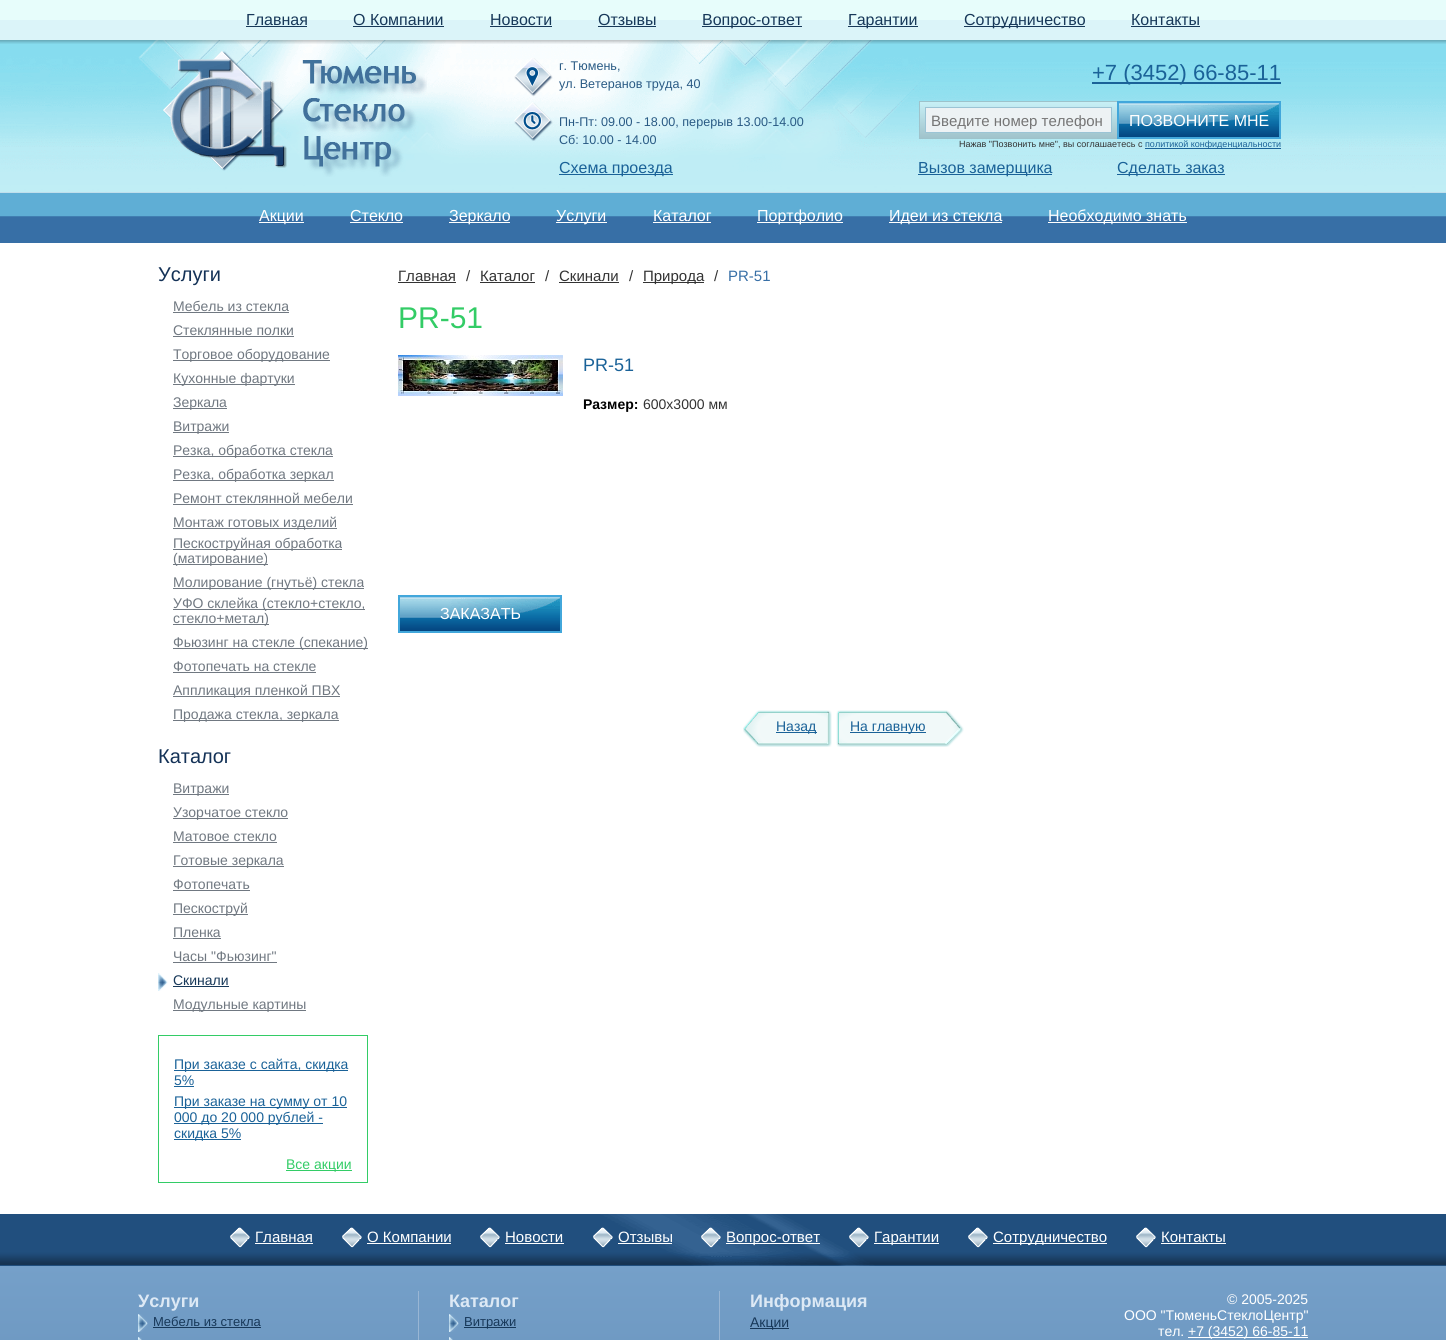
import math
import cairo


def use_color(cr, r, g, b):
  cr.set_source_rgb(r / 255, g / 255, b / 255)

def text(cr, x, y, s, family, size, color, bold=False, italic=False):
  cr.select_font_face(family, cairo.FONT_SLANT_ITALIC if italic else cairo.FONT_SLANT_NORMAL, cairo.FONT_WEIGHT_BOLD if bold else cairo.FONT_WEIGHT_NORMAL)
  cr.set_font_size(size)
  use_color(cr, *color)
  cr.move_to(x, y)
  cr.show_text(s)

def box(cr, x, y, w, h, *color):
  use_color(cr, *color)
  cr.rectangle(x, y, w, h)
  cr.fill()

def picture(cr, path, x, y, w, h):
  cr.save()
  cr.set_source_surface(cairo.ImageSurface.create_from_png(path), x, y)
  cr.rectangle(x, y, w, h)
  cr.fill()
  cr.restore()

def draw(cr):
  use_color(cr, 255, 255, 255)
  cr.paint()
  picture(cr, "img_01.png", 0, 0, 1446, 40)
  box(cr, 246, 26, 61, 1, 23, 56, 89)
  box(cr, 353, 26, 91, 1, 23, 56, 89)
  box(cr, 490, 26, 62, 1, 23, 56, 89)
  box(cr, 598, 26, 58, 1, 23, 56, 89)
  box(cr, 702, 26, 100, 1, 23, 56, 89)
  box(cr, 848, 26, 70, 1, 23, 56, 89)
  box(cr, 964, 26, 121, 1, 23, 56, 89)
  box(cr, 1131, 26, 69, 1, 23, 56, 89)
  picture(cr, "img_02.png", 0, 40, 1446, 152)
  picture(cr, "img_03.png", 0, 40, 1446, 4)
  picture(cr, "img_04.png", 163, 51, 264, 126)
  picture(cr, "img_05.png", 514, 58, 39, 39)
  picture(cr, "img_06.png", 514, 102, 39, 39)
  box(cr, 559, 174, 114, 1, 26, 98, 152)
  box(cr, 1092, 82, 189, 2, 26, 98, 152)
  gradient = cairo.LinearGradient(1019, 102, 1019, 138)
  gradient.add_color_stop_rgba(0, 0.784, 0.941, 0.965, 1)
  gradient.add_color_stop_rgba(1, 0.627, 0.765, 0.796, 1)
  cr.set_source(gradient)
  cr.rectangle(920, 102, 197, 36)
  cr.fill()
  cr.rectangle(919.5, 101.5, 198, 37)
  use_color(cr, 158, 194, 202)
  cr.set_line_width(1)
  cr.stroke()
  use_color(cr, 237, 242, 244)
  cr.rectangle(925.5, 107.5, 186, 25)
  cr.fill_preserve()
  use_color(cr, 155, 196, 213)
  cr.stroke()
  picture(cr, "img_07.png", 1119, 103, 160, 34)
  cr.rectangle(1118, 102, 162, 36)
  use_color(cr, 66, 167, 219)
  cr.set_line_width(2)
  cr.stroke()
  box(cr, 1145, 148, 136, 1, 26, 98, 152)
  box(cr, 918, 174, 134, 1, 26, 98, 152)
  box(cr, 1117, 174, 108, 1, 26, 98, 152)
  picture(cr, "img_08.png", 0, 193, 1446, 50)
  box(cr, 0, 192, 1446, 1, 192, 223, 236)
  box(cr, 259, 222, 45, 1, 255, 255, 255)
  box(cr, 350, 222, 53, 1, 255, 255, 255)
  box(cr, 449, 222, 61, 1, 255, 255, 255)
  box(cr, 556, 222, 51, 1, 255, 255, 255)
  box(cr, 653, 222, 58, 1, 255, 255, 255)
  box(cr, 757, 222, 86, 1, 255, 255, 255)
  box(cr, 889, 222, 113, 1, 255, 255, 255)
  box(cr, 1048, 222, 139, 1, 255, 255, 255)
  box(cr, 173, 312, 116, 1, 112, 120, 129)
  box(cr, 173, 336, 121, 1, 112, 120, 129)
  box(cr, 173, 360, 157, 1, 112, 120, 129)
  box(cr, 173, 384, 122, 1, 112, 120, 129)
  box(cr, 173, 408, 54, 1, 112, 120, 129)
  box(cr, 173, 432, 56, 1, 112, 120, 129)
  box(cr, 173, 456, 160, 1, 112, 120, 129)
  box(cr, 173, 480, 161, 1, 112, 120, 129)
  box(cr, 173, 504, 180, 1, 112, 120, 129)
  box(cr, 173, 528, 164, 1, 112, 120, 129)
  box(cr, 173, 549, 169, 1, 112, 120, 129)
  box(cr, 173, 564, 95, 1, 112, 120, 129)
  box(cr, 173, 588, 191, 1, 112, 120, 129)
  box(cr, 173, 609, 192, 1, 112, 120, 129)
  box(cr, 173, 624, 96, 1, 112, 120, 129)
  box(cr, 173, 648, 195, 1, 112, 120, 129)
  box(cr, 173, 672, 143, 1, 112, 120, 129)
  box(cr, 173, 696, 167, 1, 112, 120, 129)
  box(cr, 173, 720, 166, 1, 112, 120, 129)
  box(cr, 173, 794, 56, 1, 112, 120, 129)
  box(cr, 173, 818, 115, 1, 112, 120, 129)
  box(cr, 173, 842, 104, 1, 112, 120, 129)
  box(cr, 173, 866, 111, 1, 112, 120, 129)
  box(cr, 173, 890, 77, 1, 112, 120, 129)
  box(cr, 173, 914, 75, 1, 112, 120, 129)
  box(cr, 173, 938, 48, 1, 112, 120, 129)
  box(cr, 173, 962, 104, 1, 112, 120, 129)
  picture(cr, "img_09.png", 158, 973, 10, 18)
  box(cr, 173, 986, 56, 1, 23, 56, 89)
  box(cr, 173, 1010, 133, 1, 112, 120, 129)
  cr.rectangle(158.5, 1035.5, 209, 147)
  use_color(cr, 51, 204, 102)
  cr.set_line_width(1)
  cr.stroke()
  box(cr, 174, 1070, 174, 1, 26, 98, 152)
  box(cr, 174, 1086, 20, 1, 26, 98, 152)
  box(cr, 174, 1107, 173, 1, 26, 98, 152)
  box(cr, 174, 1123, 149, 1, 26, 98, 152)
  box(cr, 174, 1139, 67, 1, 26, 98, 152)
  box(cr, 286, 1170, 66, 1, 51, 204, 102)
  box(cr, 398, 282, 58, 1, 51, 51, 51)
  box(cr, 480, 282, 55, 1, 51, 51, 51)
  box(cr, 559, 282, 60, 1, 51, 51, 51)
  box(cr, 643, 282, 61, 1, 51, 51, 51)
  picture(cr, "img_10.png", 398, 355, 165, 41)
  picture(cr, "img_11.png", 400, 597, 160, 34)
  cr.rectangle(399, 596, 162, 36)
  use_color(cr, 66, 167, 219)
  cr.set_line_width(2)
  cr.stroke()
  picture(cr, "img_12.png", 743, 710, 89, 37)
  box(cr, 776, 732, 41, 1, 26, 98, 152)
  picture(cr, "img_13.png", 836, 710, 128, 37)
  box(cr, 850, 732, 76, 1, 26, 98, 152)
  picture(cr, "img_14.png", 0, 1214, 1446, 52)
  picture(cr, "img_15.png", 230, 1227, 20, 21)
  box(cr, 255, 1243, 58, 1, 255, 255, 255)
  picture(cr, "img_15.png", 342, 1227, 20, 21)
  box(cr, 367, 1243, 84, 1, 255, 255, 255)
  picture(cr, "img_15.png", 480, 1227, 20, 21)
  box(cr, 505, 1243, 59, 1, 255, 255, 255)
  picture(cr, "img_15.png", 593, 1227, 20, 21)
  box(cr, 618, 1243, 54, 1, 255, 255, 255)
  picture(cr, "img_16.png", 701, 1227, 20, 21)
  box(cr, 726, 1243, 94, 1, 255, 255, 255)
  picture(cr, "img_15.png", 849, 1227, 20, 21)
  box(cr, 874, 1243, 65, 1, 255, 255, 255)
  picture(cr, "img_15.png", 968, 1227, 20, 21)
  box(cr, 993, 1243, 114, 1, 255, 255, 255)
  picture(cr, "img_15.png", 1136, 1227, 20, 21)
  box(cr, 1161, 1243, 65, 1, 255, 255, 255)
  gradient = cairo.LinearGradient(723, 1266, 723, 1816)
  gradient.add_color_stop_rgba(0, 0.459, 0.627, 0.788, 1)
  gradient.add_color_stop_rgba(1, 0.29, 0.455, 0.62, 1)
  cr.set_source(gradient)
  cr.rectangle(0, 1266, 1446, 74)
  cr.fill()
  box(cr, 418, 1291, 1, 49, 153, 182, 212)
  picture(cr, "img_17.png", 138, 1314, 10, 18)
  box(cr, 153, 1327, 108, 1, 23, 56, 89)
  picture(cr, "img_18.png", 138, 1337, 4, 3)
  box(cr, 719, 1291, 1, 49, 153, 182, 212)
  picture(cr, "img_17.png", 449, 1314, 10, 18)
  box(cr, 464, 1327, 52, 1, 23, 56, 89)
  picture(cr, "img_18.png", 449, 1337, 4, 3)
  box(cr, 750, 1328, 39, 1, 23, 56, 89)
  box(cr, 1188, 1337, 120, 1, 255, 255, 255)
  text(cr, 246, 25, "Главная", "Liberation Sans", 16, (23, 56, 89))
  text(cr, 353, 25, "О Компании", "Liberation Sans", 16, (23, 56, 89))
  text(cr, 490, 25, "Новости", "Liberation Sans", 16, (23, 56, 89))
  text(cr, 598, 25, "Отзывы", "Liberation Sans", 16, (23, 56, 89))
  text(cr, 702, 25, "Вопрос-ответ", "Liberation Sans", 16, (23, 56, 89))
  text(cr, 848, 25, "Гарантии", "Liberation Sans", 16, (23, 56, 89))
  text(cr, 964, 25, "Сотрудничество", "Liberation Sans", 16, (23, 56, 89))
  text(cr, 1131, 25, "Контакты", "Liberation Sans", 16, (23, 56, 89))
  text(cr, 559, 70, "г. Тюмень,", "Liberation Sans", 12.6, (41, 90, 132))
  text(cr, 559, 88, "ул. Ветеранов труда, 40", "Liberation Sans", 12.6, (41, 90, 132))
  text(cr, 559, 126, "Пн-Пт: 09.00 - 18.00, перерыв 13.00-14.00", "Liberation Sans", 12.6, (41, 90, 132))
  text(cr, 559, 144, "Сб: 10.00 - 14.00", "Liberation Sans", 12.6, (41, 90, 132))
  text(cr, 559, 173, "Схема проезда", "Liberation Sans", 16, (26, 98, 152))
  text(cr, 1092, 80, "+7 (3452) 66-85-11", "Liberation Sans", 22, (26, 98, 152))
  cr.save()
  cr.rectangle(931, 112, 175, 17)
  cr.clip()
  text(cr, 931, 126, "Введите номер телефон", "Liberation Sans", 15, (117, 117, 117))
  cr.restore()
  text(cr, 1129, 126, "ПОЗВОНИТЕ МНЕ", "Liberation Sans", 16, (255, 255, 255))
  text(cr, 959, 147, "Нажав \"Позвонить мне\", вы соглашаетесь с", "Liberation Sans", 9, (51, 51, 51))
  text(cr, 1145, 147, "политикой конфиденциальности", "Liberation Sans", 9, (26, 98, 152))
  text(cr, 918, 173, "Вызов замерщика", "Liberation Sans", 16, (26, 98, 152))
  text(cr, 1117, 173, "Сделать заказ", "Liberation Sans", 16, (26, 98, 152))
  text(cr, 259, 221, "Акции", "Liberation Sans", 16, (255, 255, 255))
  text(cr, 350, 221, "Стекло", "Liberation Sans", 16, (255, 255, 255))
  text(cr, 449, 221, "Зеркало", "Liberation Sans", 16, (255, 255, 255))
  text(cr, 556, 221, "Услуги", "Liberation Sans", 16, (255, 255, 255))
  text(cr, 653, 221, "Каталог", "Liberation Sans", 16, (255, 255, 255))
  text(cr, 757, 221, "Портфолио", "Liberation Sans", 16, (255, 255, 255))
  text(cr, 889, 221, "Идеи из стекла", "Liberation Sans", 16, (255, 255, 255))
  text(cr, 1048, 221, "Необходимо знать", "Liberation Sans", 16, (255, 255, 255))
  text(cr, 158, 281, "Услуги", "Liberation Sans", 20, (20, 50, 87))
  text(cr, 173, 311, "Мебель из стекла", "Liberation Sans", 14, (112, 120, 129))
  text(cr, 173, 335, "Стеклянные полки", "Liberation Sans", 14, (112, 120, 129))
  text(cr, 173, 359, "Торговое оборудование", "Liberation Sans", 14, (112, 120, 129))
  text(cr, 173, 383, "Кухонные фартуки", "Liberation Sans", 14, (112, 120, 129))
  text(cr, 173, 407, "Зеркала", "Liberation Sans", 14, (112, 120, 129))
  text(cr, 173, 431, "Витражи", "Liberation Sans", 14, (112, 120, 129))
  text(cr, 173, 455, "Резка, обработка стекла", "Liberation Sans", 14, (112, 120, 129))
  text(cr, 173, 479, "Резка, обработка зеркал", "Liberation Sans", 14, (112, 120, 129))
  text(cr, 173, 503, "Ремонт стеклянной мебели", "Liberation Sans", 14, (112, 120, 129))
  text(cr, 173, 527, "Монтаж готовых изделий", "Liberation Sans", 14, (112, 120, 129))
  text(cr, 173, 548, "Пескоструйная обработка", "Liberation Sans", 14, (112, 120, 129))
  text(cr, 173, 563, "(матирование)", "Liberation Sans", 14, (112, 120, 129))
  text(cr, 173, 587, "Молирование (гнутьё) стекла", "Liberation Sans", 14, (112, 120, 129))
  text(cr, 173, 608, "УФО склейка (стекло+стекло,", "Liberation Sans", 14, (112, 120, 129))
  text(cr, 173, 623, "стекло+метал)", "Liberation Sans", 14, (112, 120, 129))
  text(cr, 173, 647, "Фьюзинг на стекле (спекание)", "Liberation Sans", 14, (112, 120, 129))
  text(cr, 173, 671, "Фотопечать на стекле", "Liberation Sans", 14, (112, 120, 129))
  text(cr, 173, 695, "Аппликация пленкой ПВХ", "Liberation Sans", 14, (112, 120, 129))
  text(cr, 173, 719, "Продажа стекла, зеркала", "Liberation Sans", 14, (112, 120, 129))
  text(cr, 158, 763, "Каталог", "Liberation Sans", 20, (20, 50, 87))
  text(cr, 173, 793, "Витражи", "Liberation Sans", 14, (112, 120, 129))
  text(cr, 173, 817, "Узорчатое стекло", "Liberation Sans", 14, (112, 120, 129))
  text(cr, 173, 841, "Матовое стекло", "Liberation Sans", 14, (112, 120, 129))
  text(cr, 173, 865, "Готовые зеркала", "Liberation Sans", 14, (112, 120, 129))
  text(cr, 173, 889, "Фотопечать", "Liberation Sans", 14, (112, 120, 129))
  text(cr, 173, 913, "Пескоструй", "Liberation Sans", 14, (112, 120, 129))
  text(cr, 173, 937, "Пленка", "Liberation Sans", 14, (112, 120, 129))
  text(cr, 173, 961, "Часы \"Фьюзинг\"", "Liberation Sans", 14, (112, 120, 129))
  text(cr, 173, 985, "Скинали", "Liberation Sans", 14, (23, 56, 89))
  text(cr, 173, 1009, "Модульные картины", "Liberation Sans", 14, (112, 120, 129))
  text(cr, 174, 1069, "При заказе с сайта, скидка", "Liberation Sans", 14, (26, 98, 152))
  text(cr, 174, 1085, "5%", "Liberation Sans", 14, (26, 98, 152))
  text(cr, 174, 1106, "При заказе на сумму от 10", "Liberation Sans", 14, (26, 98, 152))
  text(cr, 174, 1122, "000 до 20 000 рублей -", "Liberation Sans", 14, (26, 98, 152))
  text(cr, 174, 1138, "скидка 5%", "Liberation Sans", 14, (26, 98, 152))
  text(cr, 286, 1169, "Все акции", "Liberation Sans", 14, (51, 204, 102))
  text(cr, 398, 281, "Главная", "Liberation Sans", 15, (51, 51, 51))
  text(cr, 466, 281, "/", "Liberation Sans", 15, (51, 51, 51))
  text(cr, 480, 281, "Каталог", "Liberation Sans", 15, (51, 51, 51))
  text(cr, 545, 281, "/", "Liberation Sans", 15, (51, 51, 51))
  text(cr, 559, 281, "Скинали", "Liberation Sans", 15, (51, 51, 51))
  text(cr, 629, 281, "/", "Liberation Sans", 15, (51, 51, 51))
  text(cr, 643, 281, "Природа", "Liberation Sans", 15, (51, 51, 51))
  text(cr, 714, 281, "/", "Liberation Sans", 15, (51, 51, 51))
  text(cr, 728, 281, "PR-51", "Liberation Sans", 15, (55, 111, 166))
  text(cr, 398, 328, "PR-51", "Liberation Sans", 30, (51, 204, 102))
  text(cr, 583, 371, "PR-51", "Liberation Sans", 18, (26, 98, 152))
  text(cr, 583, 409, "Размер:", "Liberation Sans", 14, (0, 0, 0), bold=True)
  text(cr, 643, 409, "600х3000 мм", "Liberation Sans", 14, (51, 51, 51))
  text(cr, 440, 619, "ЗАКАЗАТЬ", "Liberation Sans", 16, (255, 255, 255))
  text(cr, 776, 731, "Назад", "Liberation Sans", 14, (26, 98, 152))
  text(cr, 850, 731, "На главную", "Liberation Sans", 14, (26, 98, 152))
  text(cr, 255, 1242, "Главная", "Liberation Sans", 15, (255, 255, 255))
  text(cr, 367, 1242, "О Компании", "Liberation Sans", 15, (255, 255, 255))
  text(cr, 505, 1242, "Новости", "Liberation Sans", 15, (255, 255, 255))
  text(cr, 618, 1242, "Отзывы", "Liberation Sans", 15, (255, 255, 255))
  text(cr, 726, 1242, "Вопрос-ответ", "Liberation Sans", 15, (255, 255, 255))
  text(cr, 874, 1242, "Гарантии", "Liberation Sans", 15, (255, 255, 255))
  text(cr, 993, 1242, "Сотрудничество", "Liberation Sans", 15, (255, 255, 255))
  text(cr, 1161, 1242, "Контакты", "Liberation Sans", 15, (255, 255, 255))
  text(cr, 138, 1307, "Услуги", "Liberation Sans", 18, (221, 233, 245), bold=True)
  text(cr, 153, 1326, "Мебель из стекла", "Liberation Sans", 13, (23, 56, 89))
  text(cr, 449, 1307, "Каталог", "Liberation Sans", 18, (221, 233, 245), bold=True)
  text(cr, 464, 1326, "Витражи", "Liberation Sans", 13, (23, 56, 89))
  text(cr, 750, 1307, "Информация", "Liberation Sans", 18, (221, 233, 245), bold=True)
  text(cr, 750, 1327, "Акции", "Liberation Sans", 14, (23, 56, 89))
  text(cr, 1227, 1304, "© 2005-2025", "Liberation Sans", 14, (255, 255, 255))
  text(cr, 1124, 1320, "ООО \"ТюменьСтеклоЦентр\"", "Liberation Sans", 14, (255, 255, 255))
  text(cr, 1158, 1336, "тел.", "Liberation Sans", 14, (255, 255, 255))
  text(cr, 1188, 1336, "+7 (3452) 66-85-11", "Liberation Sans", 14, (255, 255, 255))


surface = cairo.ImageSurface(cairo.FORMAT_RGB24, 1446, 1340)
cr = cairo.Context(surface)
options = cairo.FontOptions()
options.set_hint_metrics(cairo.HINT_METRICS_OFF)
options.set_hint_style(cairo.HINT_STYLE_NONE)
cr.set_font_options(options)
cr.set_miter_limit(4)
draw(cr)
surface.write_to_png("out.png")
